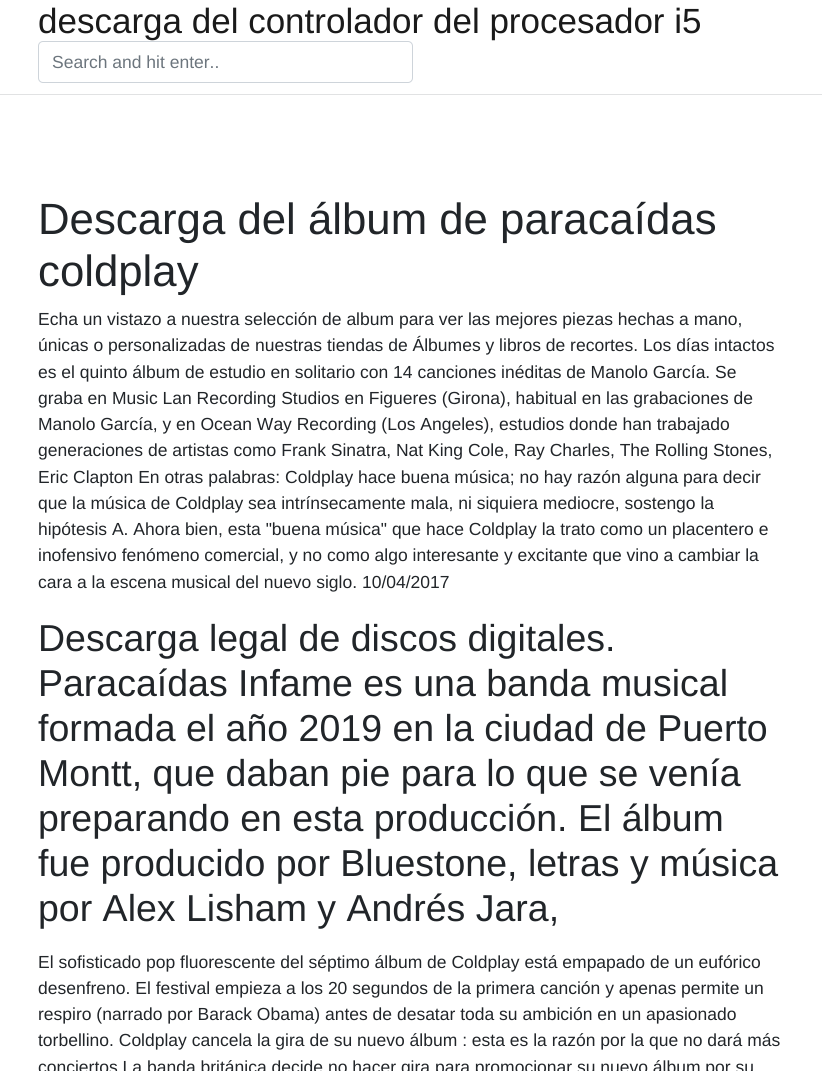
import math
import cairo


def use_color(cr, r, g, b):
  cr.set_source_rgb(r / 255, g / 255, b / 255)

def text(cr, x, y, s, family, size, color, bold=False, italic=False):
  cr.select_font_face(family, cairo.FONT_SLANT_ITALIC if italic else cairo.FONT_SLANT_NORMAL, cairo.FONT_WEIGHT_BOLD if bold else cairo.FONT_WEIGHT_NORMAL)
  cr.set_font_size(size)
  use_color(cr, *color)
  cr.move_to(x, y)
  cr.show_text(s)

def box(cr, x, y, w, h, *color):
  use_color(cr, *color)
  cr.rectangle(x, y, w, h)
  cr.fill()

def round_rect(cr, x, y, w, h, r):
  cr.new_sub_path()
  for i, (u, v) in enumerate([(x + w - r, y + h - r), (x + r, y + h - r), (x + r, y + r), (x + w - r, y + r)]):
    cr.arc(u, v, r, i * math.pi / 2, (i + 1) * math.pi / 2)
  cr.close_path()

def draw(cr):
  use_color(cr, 255, 255, 255)
  cr.paint()
  box(cr, 0, 94, 822, 1, 225, 226, 227)
  round_rect(cr, 38.5, 41.5, 374, 41, 4.5)
  use_color(cr, 206, 212, 218)
  cr.set_line_width(1)
  cr.stroke()
  text(cr, 38, 33, "descarga del controlador del procesador i5", "Liberation Sans", 35, (26, 26, 26))
  text(cr, 52, 68, "Search and hit enter..", "Liberation Sans", 17.5, (108, 117, 125))
  text(cr, 38, 234, "Descarga del álbum de paracaídas", "Liberation Sans", 43.75, (33, 37, 41))
  text(cr, 38, 286, "coldplay", "Liberation Sans", 43.75, (33, 37, 41))
  text(cr, 38, 325, "Echa un vistazo a nuestra selección de album para ver las mejores piezas hechas a mano,", "Liberation Sans", 17.5, (33, 37, 41))
  text(cr, 38, 351, "únicas o personalizadas de nuestras tiendas de Álbumes y libros de recortes. Los días intactos", "Liberation Sans", 17.5, (33, 37, 41))
  text(cr, 38, 378, "es el quinto álbum de estudio en solitario con 14 canciones inéditas de Manolo García. Se", "Liberation Sans", 17.5, (33, 37, 41))
  text(cr, 38, 404, "graba en Music Lan Recording Studios en Figueres (Girona), habitual en las grabaciones de", "Liberation Sans", 17.5, (33, 37, 41))
  text(cr, 38, 430, "Manolo García, y en Ocean Way Recording (Los Angeles), estudios donde han trabajado", "Liberation Sans", 17.5, (33, 37, 41))
  text(cr, 38, 456, "generaciones de artistas como Frank Sinatra, Nat King Cole, Ray Charles, The Rolling Stones,", "Liberation Sans", 17.5, (33, 37, 41))
  text(cr, 38, 483, "Eric Clapton En otras palabras: Coldplay hace buena música; no hay razón alguna para decir", "Liberation Sans", 17.5, (33, 37, 41))
  text(cr, 38, 509, "que la música de Coldplay sea intrínsecamente mala, ni siquiera mediocre, sostengo la", "Liberation Sans", 17.5, (33, 37, 41))
  text(cr, 38, 535, "hipótesis A. Ahora bien, esta \"buena música\" que hace Coldplay la trato como un placentero e", "Liberation Sans", 17.5, (33, 37, 41))
  text(cr, 38, 561, "inofensivo fenómeno comercial, y no como algo interesante y excitante que vino a cambiar la", "Liberation Sans", 17.5, (33, 37, 41))
  text(cr, 38, 588, "cara a la escena musical del nuevo siglo. 10/04/2017", "Liberation Sans", 17.5, (33, 37, 41))
  text(cr, 38, 651, "Descarga legal de discos digitales.", "Liberation Sans", 37.5, (33, 37, 41))
  text(cr, 38, 696, "Paracaídas Infame es una banda musical", "Liberation Sans", 37.5, (33, 37, 41))
  text(cr, 38, 741, "formada el año 2019 en la ciudad de Puerto", "Liberation Sans", 37.5, (33, 37, 41))
  text(cr, 38, 786, "Montt, que daban pie para lo que se venía", "Liberation Sans", 37.5, (33, 37, 41))
  text(cr, 38, 831, "preparando en esta producción. El álbum", "Liberation Sans", 37.5, (33, 37, 41))
  text(cr, 38, 876, "fue producido por Bluestone, letras y música", "Liberation Sans", 37.5, (33, 37, 41))
  text(cr, 38, 921, "por Alex Lisham y Andrés Jara,", "Liberation Sans", 37.5, (33, 37, 41))
  text(cr, 38, 968, "El sofisticado pop fluorescente del séptimo álbum de Coldplay está empapado de un eufórico", "Liberation Sans", 17.5, (33, 37, 41))
  text(cr, 38, 994, "desenfreno. El festival empieza a los 20 segundos de la primera canción y apenas permite un", "Liberation Sans", 17.5, (33, 37, 41))
  text(cr, 38, 1020, "respiro (narrado por Barack Obama) antes de desatar toda su ambición en un apasionado", "Liberation Sans", 17.5, (33, 37, 41))
  text(cr, 38, 1046, "torbellino. Coldplay cancela la gira de su nuevo álbum : esta es la razón por la que no dará más", "Liberation Sans", 17.5, (33, 37, 41))
  text(cr, 38, 1073, "conciertos La banda británica decide no hacer gira para promocionar su nuevo álbum por su", "Liberation Sans", 17.5, (33, 37, 41))


surface = cairo.ImageSurface(cairo.FORMAT_RGB24, 822, 1071)
cr = cairo.Context(surface)
options = cairo.FontOptions()
options.set_hint_metrics(cairo.HINT_METRICS_OFF)
options.set_hint_style(cairo.HINT_STYLE_NONE)
cr.set_font_options(options)
cr.set_miter_limit(4)
draw(cr)
surface.write_to_png("out.png")
